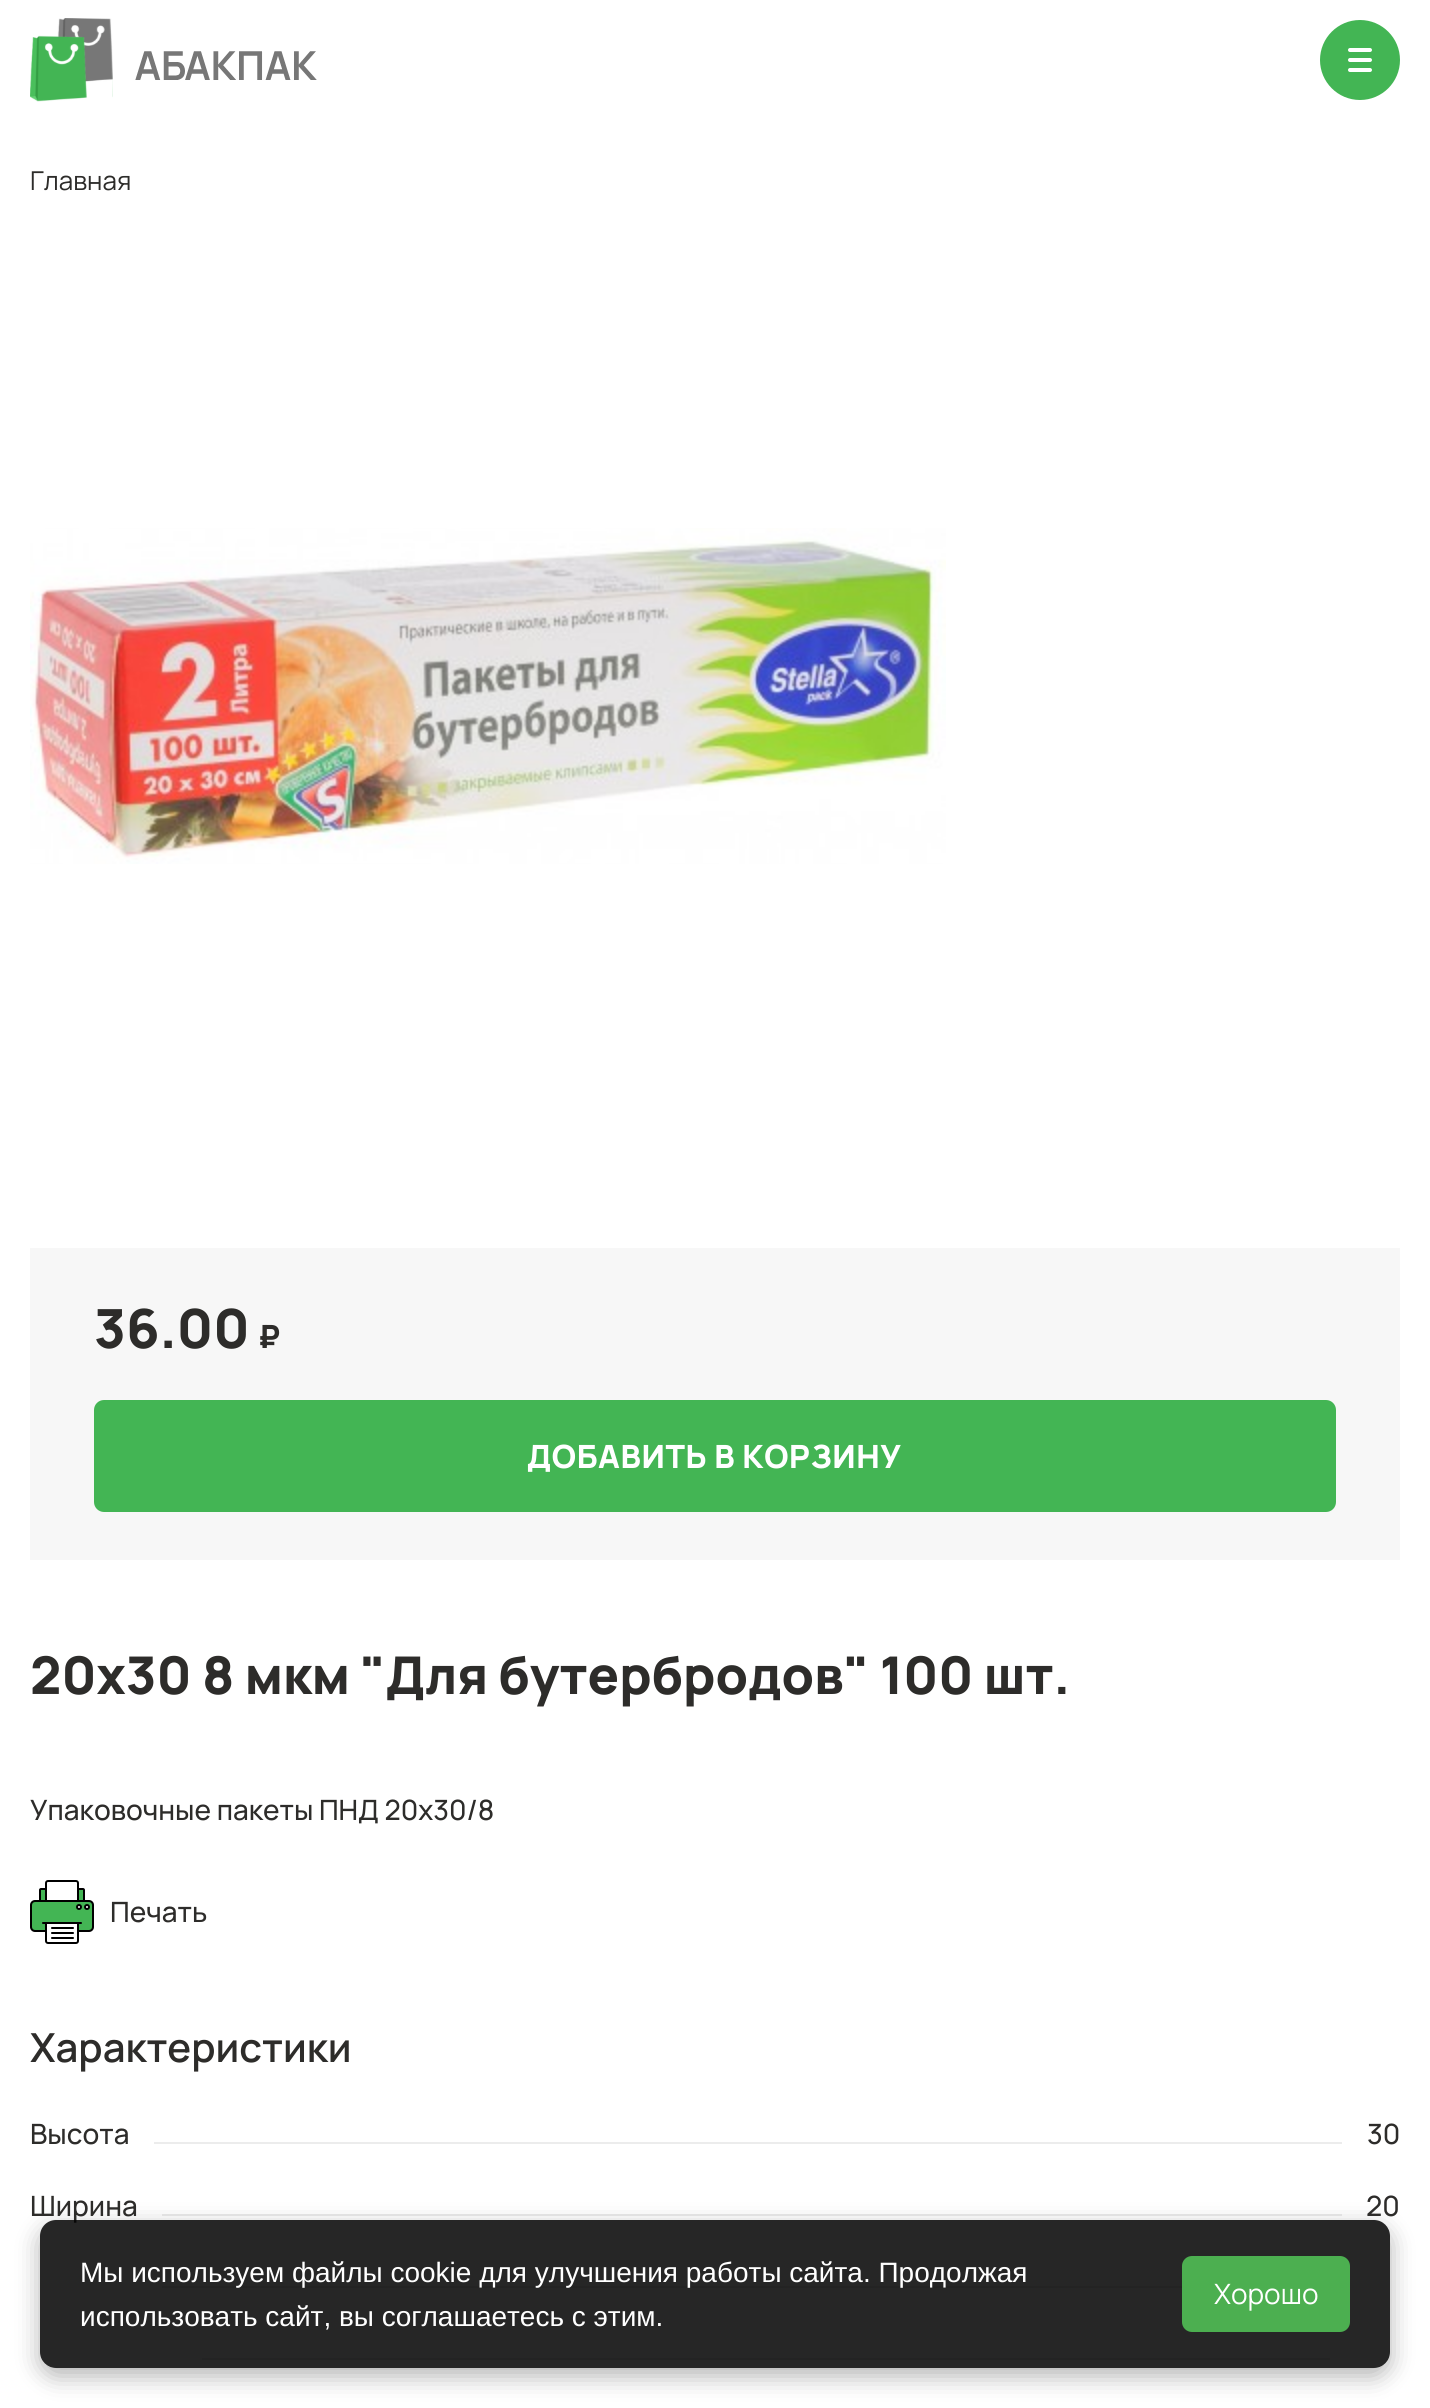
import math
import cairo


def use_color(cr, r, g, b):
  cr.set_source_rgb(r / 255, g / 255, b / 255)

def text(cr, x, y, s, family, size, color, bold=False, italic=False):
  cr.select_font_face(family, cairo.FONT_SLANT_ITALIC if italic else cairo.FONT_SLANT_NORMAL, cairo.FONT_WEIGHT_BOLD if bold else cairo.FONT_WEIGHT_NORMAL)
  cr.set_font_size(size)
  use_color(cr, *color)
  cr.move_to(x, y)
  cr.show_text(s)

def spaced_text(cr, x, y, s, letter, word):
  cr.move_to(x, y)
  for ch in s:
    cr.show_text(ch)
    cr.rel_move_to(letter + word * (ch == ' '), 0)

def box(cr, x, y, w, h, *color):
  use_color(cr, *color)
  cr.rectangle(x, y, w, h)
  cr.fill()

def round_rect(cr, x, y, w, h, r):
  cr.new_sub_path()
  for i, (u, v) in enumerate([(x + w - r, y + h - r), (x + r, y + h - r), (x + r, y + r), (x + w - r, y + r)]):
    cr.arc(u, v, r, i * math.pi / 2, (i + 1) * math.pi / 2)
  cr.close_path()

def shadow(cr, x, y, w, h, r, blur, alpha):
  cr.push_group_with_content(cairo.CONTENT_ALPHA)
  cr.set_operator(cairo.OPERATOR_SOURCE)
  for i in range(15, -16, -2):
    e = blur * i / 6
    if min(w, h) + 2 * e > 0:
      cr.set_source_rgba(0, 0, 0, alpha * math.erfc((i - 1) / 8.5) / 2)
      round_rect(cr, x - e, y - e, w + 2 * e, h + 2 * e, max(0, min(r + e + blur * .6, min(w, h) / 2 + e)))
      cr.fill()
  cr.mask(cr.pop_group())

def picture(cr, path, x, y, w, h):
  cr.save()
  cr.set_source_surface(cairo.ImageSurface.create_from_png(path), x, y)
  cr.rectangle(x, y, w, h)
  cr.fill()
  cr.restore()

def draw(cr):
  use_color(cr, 255, 255, 255)
  cr.paint()
  picture(cr, "img_01.png", 30, 18, 287, 84)
  use_color(cr, 67, 181, 84)
  cr.arc(1360, 60, 40, 0, 2 * math.pi)
  cr.fill()
  use_color(cr, 255, 255, 255)
  round_rect(cr, 1348, 48, 24, 4, 2)
  cr.fill()
  round_rect(cr, 1348, 58, 24, 4, 2)
  cr.fill()
  round_rect(cr, 1348, 68, 24, 4, 2)
  cr.fill()
  picture(cr, "img_02.png", 30, 528, 916, 336)
  box(cr, 30, 1248, 1370, 312, 247, 247, 247)
  use_color(cr, 67, 181, 84)
  round_rect(cr, 95, 1401, 1240, 110, 9)
  cr.fill_preserve()
  cr.stroke()
  picture(cr, "img_03.png", 30, 1880, 64, 64)
  box(cr, 154, 2142, 1188, 2, 236, 236, 236)
  box(cr, 162, 2214, 1180, 2, 236, 236, 236)
  box(cr, 162, 2286, 1020, 2, 236, 236, 236)
  box(cr, 202, 2358, 1128, 2, 236, 236, 236)
  cr.save()
  cr.set_fill_rule(cairo.FILL_RULE_EVEN_ODD)
  cr.new_path()
  cr.move_to(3, 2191)
  cr.line_to(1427, 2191)
  cr.line_to(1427, 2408)
  cr.line_to(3, 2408)
  cr.close_path()
  cr.move_to(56, 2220)
  cr.line_to(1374, 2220)
  cr.curve_to(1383, 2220, 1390, 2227, 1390, 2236)
  cr.line_to(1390, 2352)
  cr.curve_to(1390, 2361, 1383, 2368, 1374, 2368)
  cr.line_to(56, 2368)
  cr.curve_to(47, 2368, 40, 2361, 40, 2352)
  cr.line_to(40, 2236)
  cr.curve_to(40, 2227, 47, 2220, 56, 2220)
  cr.close_path()
  cr.clip()
  use_color(cr, 0, 0, 0)
  shadow(cr, 40, 2228, 1350, 148, 16, 12, 0.3)
  cr.restore()
  text(cr, 30, 190, "Главная", "Manrope", 26, (45, 44, 42))
  text(cr, 94, 1348, "36.00", "Manrope ExtraBold", 54, (45, 44, 42))
  text(cr, 258, 1348, "₽", "Manrope ExtraBold", 32, (45, 44, 42))
  use_color(cr, 255, 255, 255)
  spaced_text(cr, 527, 1468, "ДОБАВИТЬ В КОРЗИНУ", 0.6, 0)
  text(cr, 30, 1694, "20х30 8 мкм \"Для бутербродов\" 100 шт.", "Manrope ExtraBold", 52, (45, 44, 42))
  text(cr, 30, 1820, "Упаковочные пакеты ПНД 20х30/8", "Manrope Medium", 28, (45, 44, 42))
  text(cr, 110, 1922, "Печать", "Manrope Medium", 28, (45, 44, 42))
  text(cr, 30, 2062, "Характеристики", "Manrope SemiBold", 40, (45, 44, 42))
  text(cr, 30, 2144, "Высота", "Manrope Medium", 28, (45, 44, 42))
  text(cr, 1367, 2144, "30", "Manrope Medium", 28, (45, 44, 42))
  text(cr, 30, 2216, "Ширина", "Manrope Medium", 28, (45, 44, 42))
  text(cr, 1366, 2216, "20", "Manrope Medium", 28, (45, 44, 42))
  cr.set_source_rgba(0, 0, 0, 0.85)
  round_rect(cr, 40, 2220, 1350, 148, 16)
  cr.fill()
  text(cr, 80, 2282, "Мы используем файлы cookie для улучшения работы сайта. Продолжая", "Liberation Sans", 28, (255, 255, 255))
  text(cr, 80, 2326, "использовать сайт, вы соглашаетесь с этим.", "Liberation Sans", 28, (255, 255, 255))
  use_color(cr, 76, 175, 80)
  round_rect(cr, 1182, 2256, 168, 76, 10)
  cr.fill()
  text(cr, 1214, 2304, "Хорошо", "Manrope", 28, (255, 255, 255))


surface = cairo.ImageSurface(cairo.FORMAT_RGB24, 1430, 2408)
cr = cairo.Context(surface)
options = cairo.FontOptions()
options.set_hint_metrics(cairo.HINT_METRICS_OFF)
options.set_hint_style(cairo.HINT_STYLE_NONE)
cr.set_font_options(options)
cr.set_miter_limit(4)
draw(cr)
surface.write_to_png("out.png")
